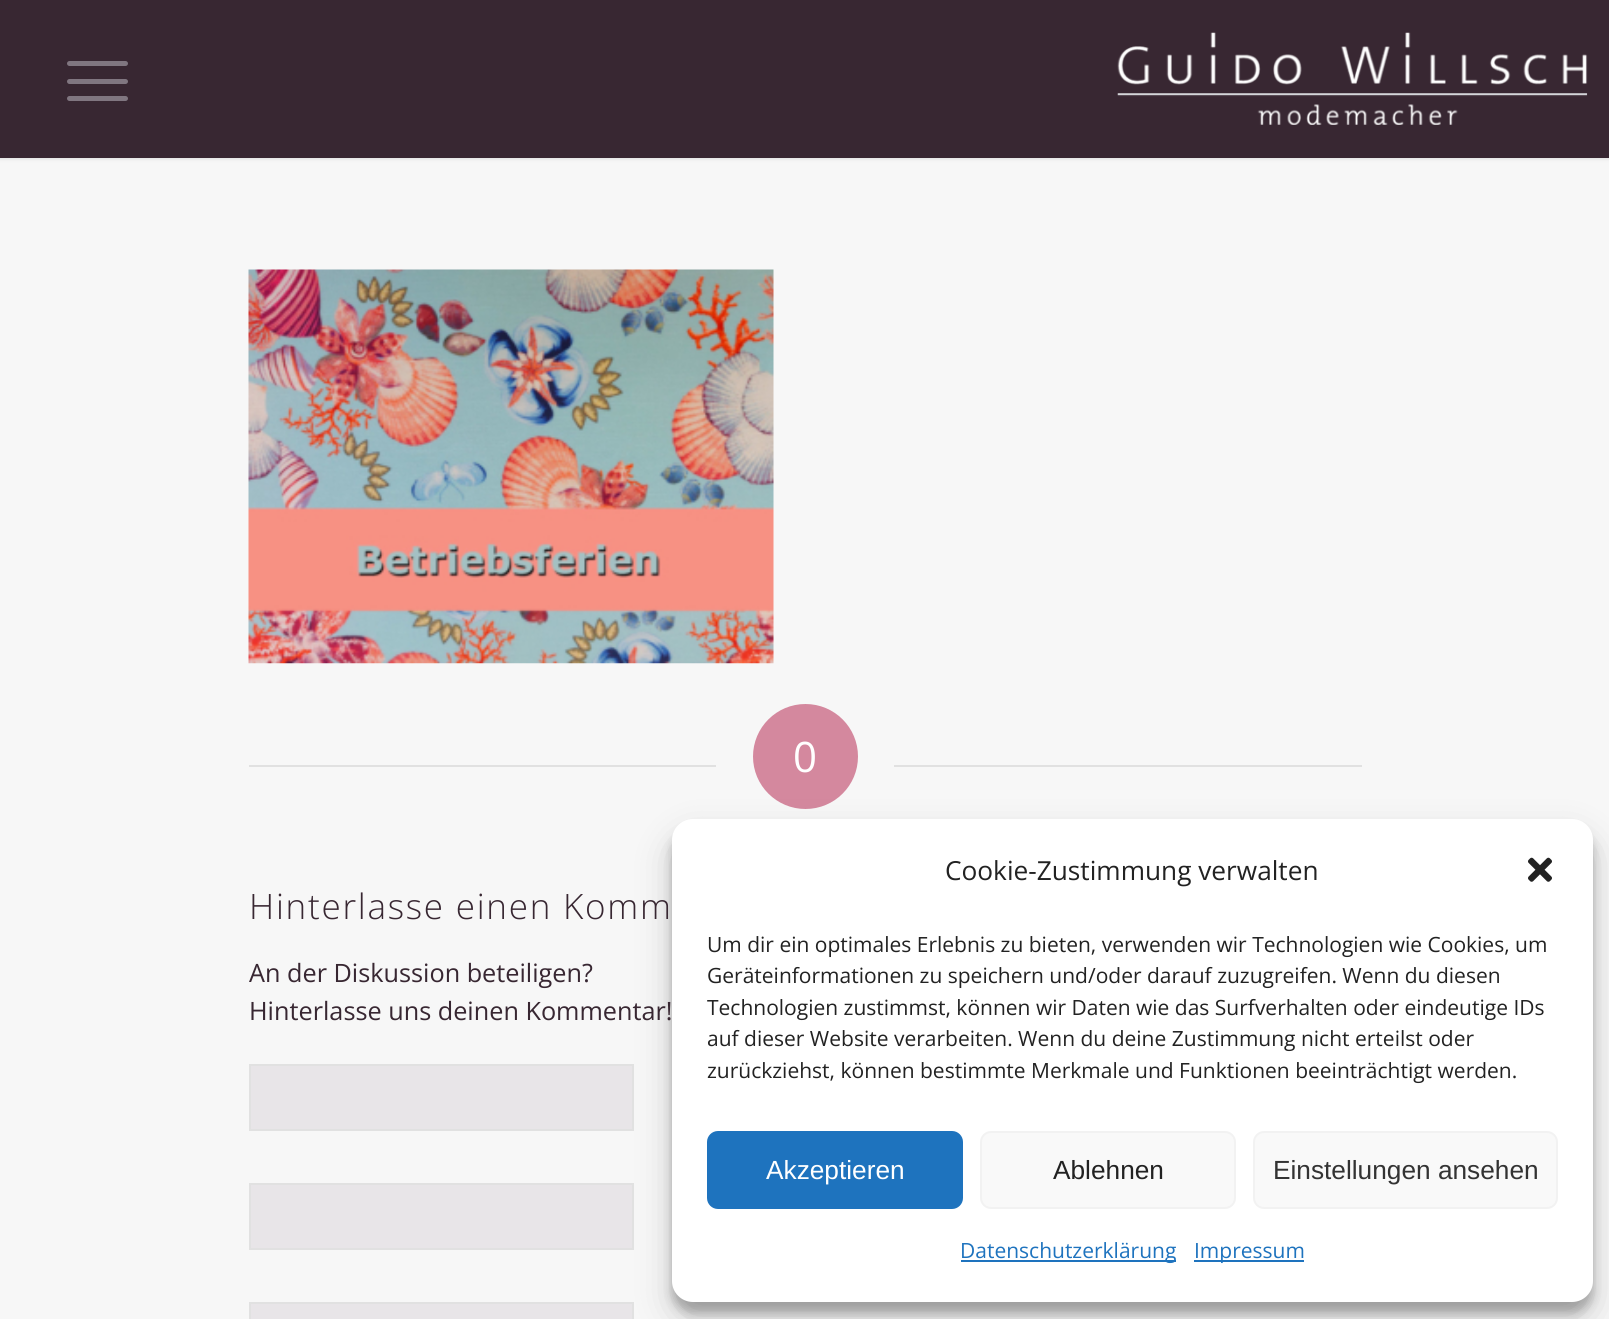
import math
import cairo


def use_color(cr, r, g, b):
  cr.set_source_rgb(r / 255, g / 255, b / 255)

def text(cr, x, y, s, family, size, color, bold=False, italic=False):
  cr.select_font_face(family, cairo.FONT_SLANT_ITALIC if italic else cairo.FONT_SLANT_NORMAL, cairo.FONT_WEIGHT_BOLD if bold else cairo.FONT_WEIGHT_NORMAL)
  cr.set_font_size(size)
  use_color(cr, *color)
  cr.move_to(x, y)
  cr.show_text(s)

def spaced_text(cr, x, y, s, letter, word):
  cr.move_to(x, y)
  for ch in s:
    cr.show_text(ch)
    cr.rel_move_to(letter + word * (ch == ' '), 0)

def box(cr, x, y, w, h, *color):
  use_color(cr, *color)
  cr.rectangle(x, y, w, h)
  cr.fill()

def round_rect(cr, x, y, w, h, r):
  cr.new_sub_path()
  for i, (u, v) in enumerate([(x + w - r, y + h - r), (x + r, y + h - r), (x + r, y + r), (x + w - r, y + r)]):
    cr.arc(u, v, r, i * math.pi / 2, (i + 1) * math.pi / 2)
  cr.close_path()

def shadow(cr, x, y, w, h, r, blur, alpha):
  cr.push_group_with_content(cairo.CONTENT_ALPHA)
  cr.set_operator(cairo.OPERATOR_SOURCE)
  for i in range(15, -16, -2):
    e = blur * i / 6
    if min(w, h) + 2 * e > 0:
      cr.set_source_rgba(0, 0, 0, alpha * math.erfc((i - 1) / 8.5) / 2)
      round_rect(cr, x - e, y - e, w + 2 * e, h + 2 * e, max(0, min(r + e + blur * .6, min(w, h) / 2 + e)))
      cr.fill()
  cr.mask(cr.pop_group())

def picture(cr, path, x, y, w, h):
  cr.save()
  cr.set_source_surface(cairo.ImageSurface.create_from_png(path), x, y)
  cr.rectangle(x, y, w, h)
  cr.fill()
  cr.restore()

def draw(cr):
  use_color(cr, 247, 247, 247)
  cr.paint()
  use_color(cr, 0, 0, 0)
  shadow(cr, -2, -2, 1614, 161, 0, 2, 0.1)
  box(cr, 0, 0, 1609, 158, 56, 39, 50)
  use_color(cr, 128, 118, 128)
  round_rect(cr, 67, 79, 61, 5, 2.5)
  cr.fill()
  round_rect(cr, 67, 61, 61, 5, 2.5)
  cr.fill()
  round_rect(cr, 67, 96, 61, 5, 2.5)
  cr.fill()
  picture(cr, "img_01.png", 1117, 32, 471, 93)
  picture(cr, "img_02.png", 248, 269, 526, 395)
  box(cr, 249, 765, 467, 2, 225, 225, 225)
  use_color(cr, 212, 136, 158)
  cr.arc(805.5, 756.5, 52.5, 0, 2 * math.pi)
  cr.fill()
  box(cr, 894, 765, 468, 2, 225, 225, 225)
  use_color(cr, 232, 229, 232)
  cr.rectangle(250, 1065, 383, 65)
  cr.fill_preserve()
  use_color(cr, 225, 225, 225)
  cr.stroke()
  use_color(cr, 232, 229, 232)
  cr.rectangle(250, 1184, 383, 65)
  cr.fill_preserve()
  use_color(cr, 225, 225, 225)
  cr.stroke()
  use_color(cr, 232, 229, 232)
  cr.rectangle(250, 1303, 383, 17)
  cr.fill_preserve()
  use_color(cr, 225, 225, 225)
  cr.stroke()
  use_color(cr, 0, 0, 0)
  shadow(cr, 672, 830, 921, 483, 21, 5, 0.23)
  shadow(cr, 672, 837, 921, 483, 21, 17.5, 0.19)
  use_color(cr, 255, 255, 255)
  round_rect(cr, 672, 819, 921, 483, 21)
  cr.fill()
  picture(cr, "img_03.png", 1528, 857, 24, 25)
  use_color(cr, 30, 115, 190)
  round_rect(cr, 708, 1132, 254, 76, 10)
  cr.fill_preserve()
  cr.stroke()
  use_color(cr, 249, 249, 249)
  round_rect(cr, 981, 1132, 254, 76, 10)
  cr.fill_preserve()
  use_color(cr, 242, 242, 242)
  cr.stroke()
  use_color(cr, 249, 249, 249)
  round_rect(cr, 1254, 1132, 303, 76, 10)
  cr.fill_preserve()
  use_color(cr, 242, 242, 242)
  cr.stroke()
  box(cr, 961, 1260, 215, 2, 30, 115, 190)
  box(cr, 1194, 1260, 110, 2, 30, 115, 190)
  text(cr, 793, 772, "0", "Open Sans", 42, (255, 255, 255))
  cr.select_font_face("Open Sans Light")
  cr.set_font_size(35)
  use_color(cr, 56, 39, 50)
  spaced_text(cr, 249, 919, "Hinterlasse einen Komm", 1.75, 0)
  text(cr, 249, 982, "An der Diskussion beteiligen?", "Open Sans", 25.25, (56, 39, 50))
  text(cr, 249, 1020, "Hinterlasse uns deinen Kommentar!", "Open Sans", 25.25, (56, 39, 50))
  text(cr, 945, 880, "Cookie-Zustimmung verwalten", "Open Sans", 26.25, (34, 34, 34))
  text(cr, 707, 952, "Um dir ein optimales Erlebnis zu bieten, verwenden wir Technologien wie Cookies, um", "Open Sans", 21, (34, 34, 34))
  text(cr, 707, 983, "Geräteinformationen zu speichern und/oder darauf zuzugreifen. Wenn du diesen", "Open Sans", 21, (34, 34, 34))
  text(cr, 707, 1015, "Technologien zustimmst, können wir Daten wie das Surfverhalten oder eindeutige IDs", "Open Sans", 21, (34, 34, 34))
  text(cr, 707, 1046, "auf dieser Website verarbeiten. Wenn du deine Zustimmung nicht erteilst oder", "Open Sans", 21, (34, 34, 34))
  text(cr, 707, 1078, "zurückziehst, können bestimmte Merkmale und Funktionen beeinträchtigt werden.", "Open Sans", 21, (34, 34, 34))
  text(cr, 766, 1179, "Akzeptieren", "Liberation Sans", 26.25, (255, 255, 255))
  text(cr, 1053, 1179, "Ablehnen", "Liberation Sans", 26.25, (34, 34, 34))
  text(cr, 1273, 1179, "Einstellungen ansehen", "Liberation Sans", 26.25, (51, 51, 51))
  text(cr, 960, 1258, "Datenschutzerklärung", "Open Sans", 21, (30, 115, 190))
  text(cr, 1194, 1258, "Impressum", "Open Sans", 21, (30, 115, 190))


surface = cairo.ImageSurface(cairo.FORMAT_RGB24, 1609, 1319)
cr = cairo.Context(surface)
options = cairo.FontOptions()
options.set_hint_metrics(cairo.HINT_METRICS_OFF)
options.set_hint_style(cairo.HINT_STYLE_NONE)
cr.set_font_options(options)
cr.set_miter_limit(4)
draw(cr)
surface.write_to_png("out.png")
